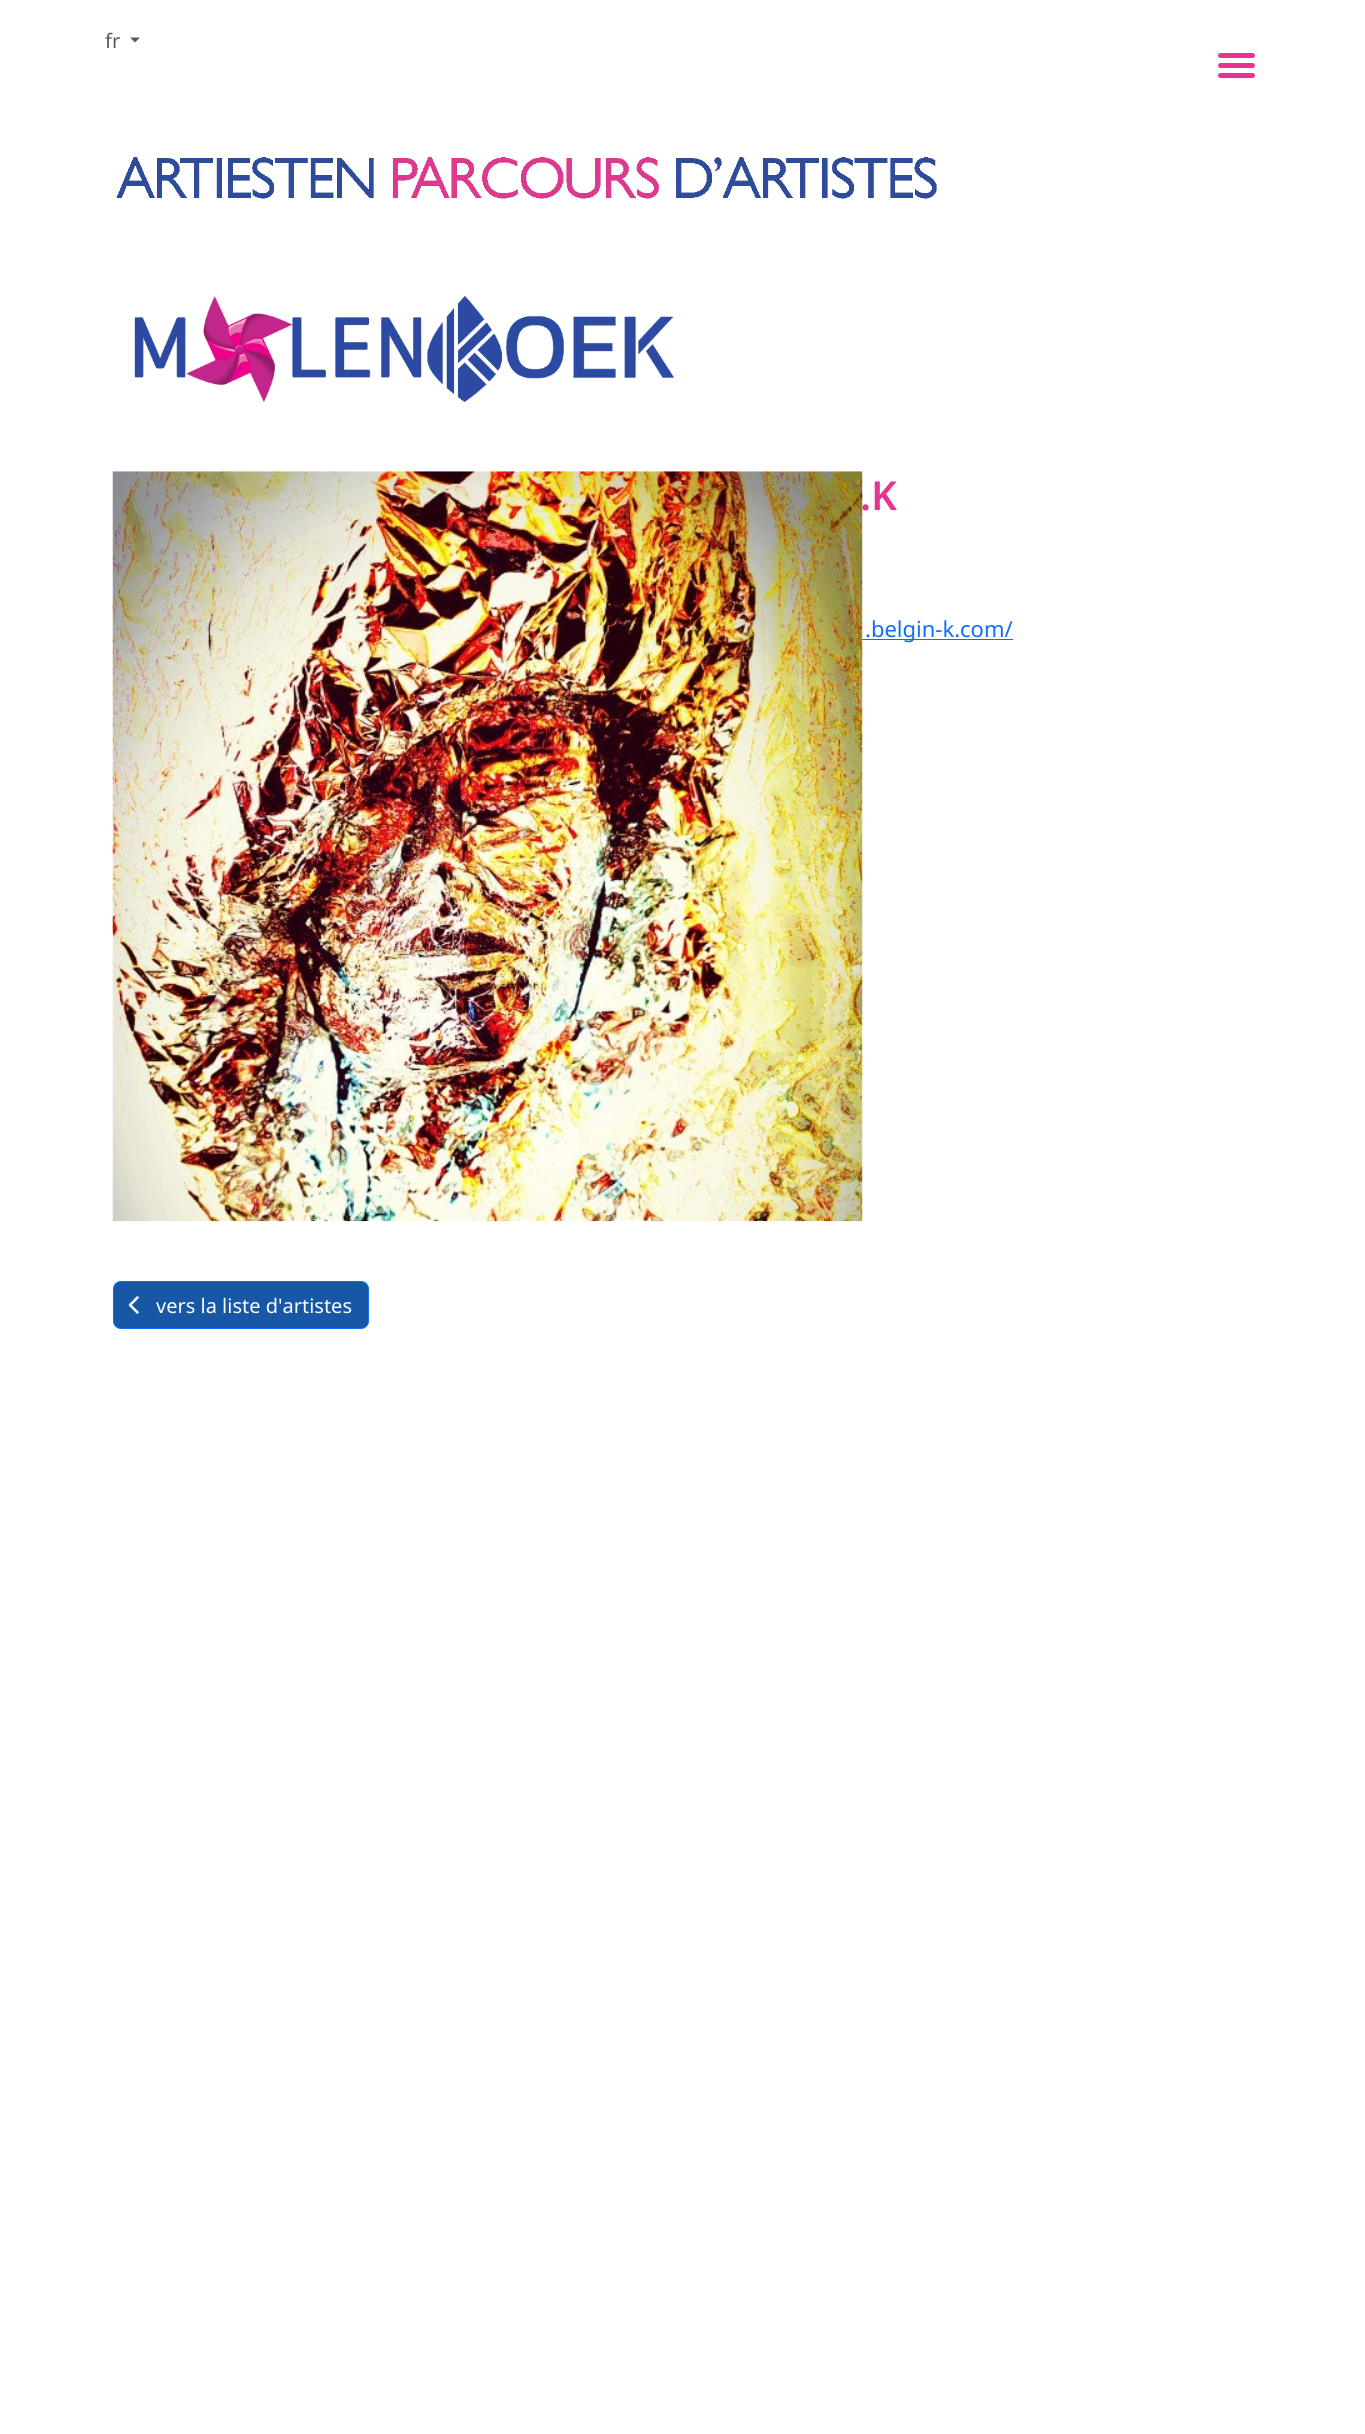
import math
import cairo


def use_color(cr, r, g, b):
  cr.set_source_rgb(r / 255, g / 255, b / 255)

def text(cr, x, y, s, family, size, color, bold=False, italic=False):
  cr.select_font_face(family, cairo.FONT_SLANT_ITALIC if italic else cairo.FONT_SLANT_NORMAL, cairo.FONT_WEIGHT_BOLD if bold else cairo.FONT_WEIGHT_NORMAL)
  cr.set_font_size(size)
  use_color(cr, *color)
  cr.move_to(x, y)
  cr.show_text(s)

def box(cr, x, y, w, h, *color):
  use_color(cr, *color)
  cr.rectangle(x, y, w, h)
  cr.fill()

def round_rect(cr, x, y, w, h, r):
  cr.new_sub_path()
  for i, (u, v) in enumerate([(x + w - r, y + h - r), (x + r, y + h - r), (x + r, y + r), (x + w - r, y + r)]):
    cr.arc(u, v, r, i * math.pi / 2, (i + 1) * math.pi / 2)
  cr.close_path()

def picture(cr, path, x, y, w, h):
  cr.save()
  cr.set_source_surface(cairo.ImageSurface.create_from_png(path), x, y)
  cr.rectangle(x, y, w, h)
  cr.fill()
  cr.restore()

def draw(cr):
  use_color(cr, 255, 255, 255)
  cr.paint()
  use_color(cr, 89, 89, 89)
  cr.new_path()
  cr.move_to(130, 37.5)
  cr.line_to(140, 37.5)
  cr.line_to(135, 42.5)
  cr.close_path()
  cr.fill()
  use_color(cr, 230, 53, 145)
  round_rect(cr, 1218, 63, 37, 5, 2.5)
  cr.fill()
  round_rect(cr, 1218, 53, 37, 5, 2.5)
  cr.fill()
  round_rect(cr, 1218, 73, 37, 5, 2.5)
  cr.fill()
  picture(cr, "img_01.png", 116, 157, 821, 42)
  picture(cr, "img_02.png", 134, 295, 540, 107)
  box(cr, 862, 639, 151, 1, 13, 110, 253)
  use_color(cr, 23, 87, 165)
  round_rect(cr, 113.5, 1281.5, 255, 47, 7.5)
  cr.fill_preserve()
  use_color(cr, 13, 110, 253)
  cr.set_line_width(1)
  cr.stroke()
  picture(cr, "img_04.png", 128, 1296, 11, 18)
  text(cr, 105, 48, "fr", "Noto Sans", 20, (89, 89, 89))
  text(cr, 860, 510, ".K", "Noto Sans SemiBold", 40, (230, 53, 145))
  picture(cr, "img_03.png", 112, 471, 751, 751)
  text(cr, 865, 637, ".belgin-k.com/", "Noto Sans", 22, (13, 110, 253))
  text(cr, 156, 1313, "vers la liste d'artistes", "Noto Sans", 20, (255, 255, 255))


surface = cairo.ImageSurface(cairo.FORMAT_RGB24, 1365, 2434)
cr = cairo.Context(surface)
options = cairo.FontOptions()
options.set_hint_metrics(cairo.HINT_METRICS_OFF)
options.set_hint_style(cairo.HINT_STYLE_NONE)
cr.set_font_options(options)
cr.set_miter_limit(4)
draw(cr)
surface.write_to_png("out.png")
